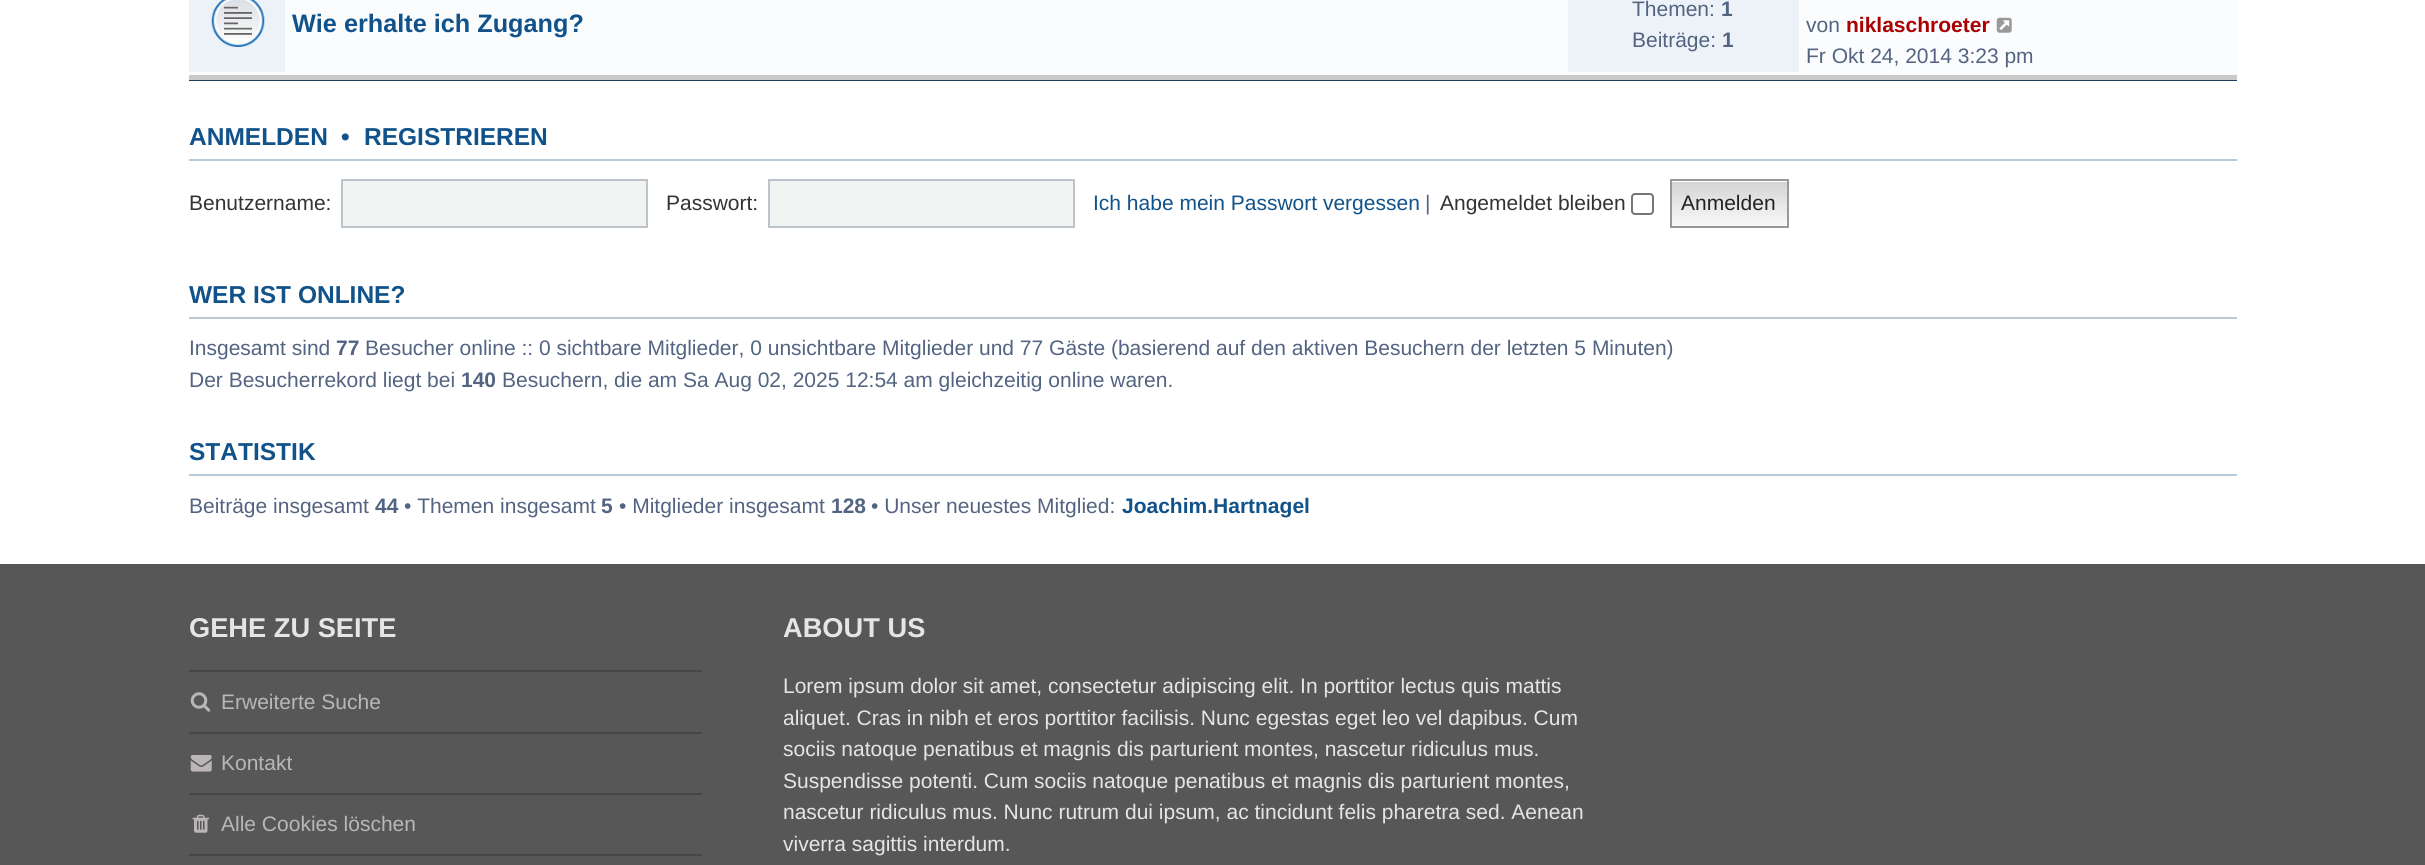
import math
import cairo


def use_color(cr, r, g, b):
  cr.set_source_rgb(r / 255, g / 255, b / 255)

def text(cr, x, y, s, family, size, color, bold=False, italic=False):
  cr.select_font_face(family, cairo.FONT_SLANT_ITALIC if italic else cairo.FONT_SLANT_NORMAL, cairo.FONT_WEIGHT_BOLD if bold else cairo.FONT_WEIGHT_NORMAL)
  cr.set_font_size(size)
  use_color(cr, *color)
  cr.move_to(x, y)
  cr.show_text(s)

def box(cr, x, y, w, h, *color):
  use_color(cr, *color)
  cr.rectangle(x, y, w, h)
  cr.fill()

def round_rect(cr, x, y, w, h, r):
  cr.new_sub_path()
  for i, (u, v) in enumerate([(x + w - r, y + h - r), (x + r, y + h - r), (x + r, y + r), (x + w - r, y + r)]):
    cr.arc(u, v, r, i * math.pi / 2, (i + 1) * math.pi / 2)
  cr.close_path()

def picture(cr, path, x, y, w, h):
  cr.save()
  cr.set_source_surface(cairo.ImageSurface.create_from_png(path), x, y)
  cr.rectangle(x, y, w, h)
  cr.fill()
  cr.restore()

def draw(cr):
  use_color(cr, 255, 255, 255)
  cr.paint()
  gradient = cairo.LinearGradient(1213, 75, 1213, 252)
  gradient.add_color_stop_rgba(0, 0.122, 0.243, 0.349, 1)
  gradient.add_color_stop_rgba(1, 0.082, 0.216, 0.325, 1)
  cr.set_source(gradient)
  cr.rectangle(189, 80, 2048, 1)
  cr.fill()
  box(cr, 189, 75, 2048, 5, 202, 202, 202)
  box(cr, 189, 0, 2048, 75, 250, 252, 254)
  box(cr, 189, 0, 96, 72, 236, 242, 247)
  picture(cr, "img_01.png", 211, 0, 54, 47)
  box(cr, 1568, 0, 231, 72, 236, 242, 247)
  picture(cr, "img_02.png", 1996, 17, 16, 16)
  box(cr, 189, 159, 2048, 2, 183, 201, 215)
  use_color(cr, 242, 243, 243)
  cr.rectangle(342, 180, 305, 47)
  cr.fill_preserve()
  use_color(cr, 188, 195, 202)
  cr.stroke()
  use_color(cr, 242, 243, 243)
  cr.rectangle(769, 180, 305, 47)
  cr.fill_preserve()
  use_color(cr, 188, 195, 202)
  cr.stroke()
  round_rect(cr, 1632, 194, 21, 20, 3)
  use_color(cr, 118, 118, 118)
  cr.stroke()
  gradient = cairo.LinearGradient(1729, 180, 1729, 226)
  gradient.add_color_stop_rgba(0, 0.824, 0.824, 0.824, 1)
  gradient.add_color_stop_rgba(1, 0.976, 0.976, 0.976, 1)
  cr.set_source(gradient)
  cr.rectangle(1672, 182, 115, 44)
  cr.fill()
  cr.rectangle(1671, 180, 117, 47)
  use_color(cr, 153, 153, 153)
  cr.stroke()
  box(cr, 189, 317, 2048, 2, 183, 201, 215)
  box(cr, 189, 474, 2048, 2, 183, 201, 215)
  box(cr, 0, 564, 2425, 301, 88, 87, 87)
  box(cr, 189, 670, 513, 2, 71, 70, 70)
  picture(cr, "img_03.png", 190, 692, 21, 20)
  box(cr, 189, 732, 513, 2, 71, 70, 70)
  picture(cr, "img_04.png", 190, 755, 22, 17)
  box(cr, 189, 793, 513, 2, 71, 70, 70)
  picture(cr, "img_05.png", 192, 814, 17, 19)
  box(cr, 189, 854, 513, 2, 71, 70, 70)
  text(cr, 292, 32, "Wie erhalte ich Zugang?", "Liberation Sans", 25.25, (16, 82, 137), bold=True)
  text(cr, 1632, 16, "Themen:", "Liberation Sans", 21, (83, 100, 130))
  text(cr, 1721, 16, "1", "Liberation Sans", 21, (83, 100, 130), bold=True)
  text(cr, 1632, 47, "Beiträge:", "Liberation Sans", 21, (83, 100, 130))
  text(cr, 1722, 47, "1", "Liberation Sans", 21, (83, 100, 130), bold=True)
  text(cr, 1806, 32, "von", "Liberation Sans", 21, (83, 100, 130))
  text(cr, 1846, 32, "niklaschroeter", "Liberation Sans", 21, (170, 0, 0), bold=True)
  text(cr, 1806, 63, "Fr Okt 24, 2014 3:23 pm", "Liberation Sans", 21, (83, 100, 130))
  text(cr, 189, 145, "ANMELDEN", "Liberation Sans", 24.5, (16, 82, 137), bold=True)
  text(cr, 341, 145, "•", "Liberation Sans", 24.5, (16, 82, 137), bold=True)
  text(cr, 364, 145, "REGISTRIEREN", "Liberation Sans", 24.5, (16, 82, 137), bold=True)
  text(cr, 189, 210, "Benutzername:", "Liberation Sans", 21, (51, 51, 51))
  text(cr, 666, 210, "Passwort:", "Liberation Sans", 21, (51, 51, 51))
  text(cr, 1093, 210, "Ich habe mein Passwort vergessen", "Liberation Sans", 21, (16, 82, 137))
  text(cr, 1425, 210, "|", "Liberation Sans", 21, (83, 100, 130))
  text(cr, 1440, 210, "Angemeldet bleiben", "Liberation Sans", 21, (51, 51, 51))
  text(cr, 1681, 210, "Anmelden", "Liberation Sans", 21, (34, 34, 34))
  text(cr, 189, 303, "WER IST ONLINE?", "Liberation Sans", 24.5, (16, 82, 137), bold=True)
  text(cr, 189, 355, "Insgesamt sind", "Liberation Sans", 21, (83, 100, 130))
  text(cr, 336, 355, "77", "Liberation Sans", 21, (83, 100, 130), bold=True)
  text(cr, 365, 355, "Besucher online :: 0 sichtbare Mitglieder, 0 unsichtbare Mitglieder und 77 Gäste (basierend auf den aktiven Besuchern der letzten 5 Minuten)", "Liberation Sans", 21, (83, 100, 130))
  text(cr, 189, 387, "Der Besucherrekord liegt bei", "Liberation Sans", 21, (83, 100, 130))
  text(cr, 461, 387, "140", "Liberation Sans", 21, (83, 100, 130), bold=True)
  text(cr, 502, 387, "Besuchern, die am Sa Aug 02, 2025 12:54 am gleichzeitig online waren.", "Liberation Sans", 21, (83, 100, 130))
  text(cr, 189, 460, "STATISTIK", "Liberation Sans", 24.5, (16, 82, 137), bold=True)
  text(cr, 189, 513, "Beiträge insgesamt", "Liberation Sans", 21, (83, 100, 130))
  text(cr, 375, 513, "44", "Liberation Sans", 21, (83, 100, 130), bold=True)
  text(cr, 404, 513, "• Themen insgesamt", "Liberation Sans", 21, (83, 100, 130))
  text(cr, 601, 513, "5", "Liberation Sans", 21, (83, 100, 130), bold=True)
  text(cr, 619, 513, "• Mitglieder insgesamt", "Liberation Sans", 21, (83, 100, 130))
  text(cr, 831, 513, "128", "Liberation Sans", 21, (83, 100, 130), bold=True)
  text(cr, 871, 513, "• Unser neuestes Mitglied:", "Liberation Sans", 21, (83, 100, 130))
  text(cr, 1122, 513, "Joachim.Hartnagel", "Liberation Sans", 21, (16, 82, 137), bold=True)
  text(cr, 189, 637, "GEHE ZU SEITE", "Liberation Sans", 27.25, (231, 228, 228), bold=True)
  text(cr, 221, 709, "Erweiterte Suche", "Liberation Sans", 21, (186, 182, 182))
  text(cr, 221, 770, "Kontakt", "Liberation Sans", 21, (186, 182, 182))
  text(cr, 221, 831, "Alle Cookies löschen", "Liberation Sans", 21, (186, 182, 182))
  text(cr, 783, 637, "ABOUT US", "Liberation Sans", 27.25, (231, 228, 228), bold=True)
  text(cr, 783, 693, "Lorem ipsum dolor sit amet, consectetur adipiscing elit. In porttitor lectus quis mattis", "Liberation Sans", 21, (231, 228, 228))
  text(cr, 783, 725, "aliquet. Cras in nibh et eros porttitor facilisis. Nunc egestas eget leo vel dapibus. Cum", "Liberation Sans", 21, (231, 228, 228))
  text(cr, 783, 756, "sociis natoque penatibus et magnis dis parturient montes, nascetur ridiculus mus.", "Liberation Sans", 21, (231, 228, 228))
  text(cr, 783, 788, "Suspendisse potenti. Cum sociis natoque penatibus et magnis dis parturient montes,", "Liberation Sans", 21, (231, 228, 228))
  text(cr, 783, 819, "nascetur ridiculus mus. Nunc rutrum dui ipsum, ac tincidunt felis pharetra sed. Aenean", "Liberation Sans", 21, (231, 228, 228))
  text(cr, 783, 851, "viverra sagittis interdum.", "Liberation Sans", 21, (231, 228, 228))


surface = cairo.ImageSurface(cairo.FORMAT_RGB24, 2425, 865)
cr = cairo.Context(surface)
options = cairo.FontOptions()
options.set_hint_metrics(cairo.HINT_METRICS_OFF)
options.set_hint_style(cairo.HINT_STYLE_NONE)
cr.set_font_options(options)
cr.set_miter_limit(4)
draw(cr)
surface.write_to_png("out.png")
